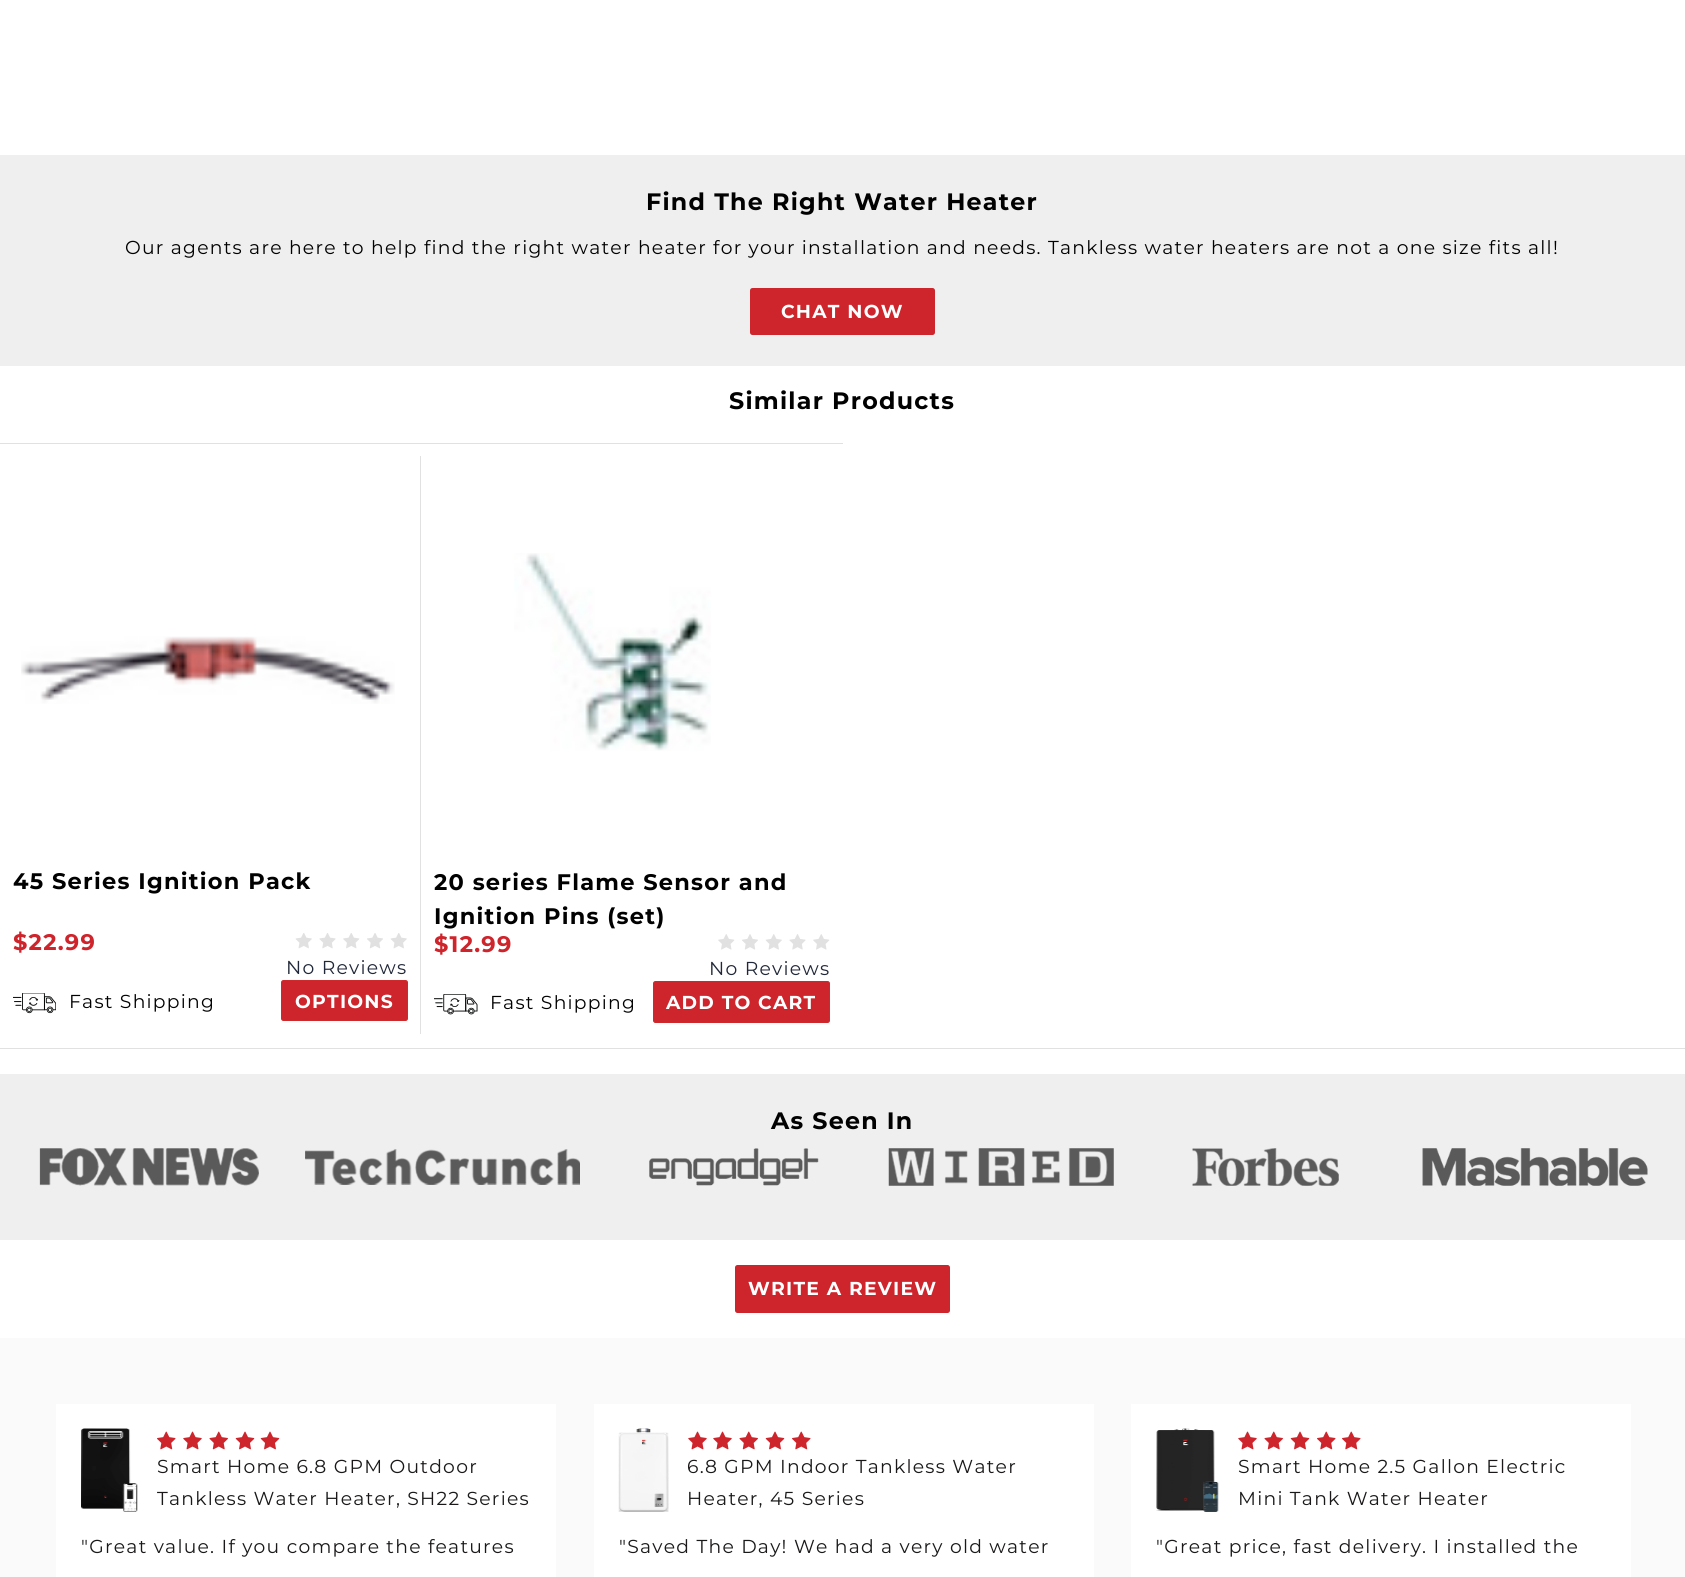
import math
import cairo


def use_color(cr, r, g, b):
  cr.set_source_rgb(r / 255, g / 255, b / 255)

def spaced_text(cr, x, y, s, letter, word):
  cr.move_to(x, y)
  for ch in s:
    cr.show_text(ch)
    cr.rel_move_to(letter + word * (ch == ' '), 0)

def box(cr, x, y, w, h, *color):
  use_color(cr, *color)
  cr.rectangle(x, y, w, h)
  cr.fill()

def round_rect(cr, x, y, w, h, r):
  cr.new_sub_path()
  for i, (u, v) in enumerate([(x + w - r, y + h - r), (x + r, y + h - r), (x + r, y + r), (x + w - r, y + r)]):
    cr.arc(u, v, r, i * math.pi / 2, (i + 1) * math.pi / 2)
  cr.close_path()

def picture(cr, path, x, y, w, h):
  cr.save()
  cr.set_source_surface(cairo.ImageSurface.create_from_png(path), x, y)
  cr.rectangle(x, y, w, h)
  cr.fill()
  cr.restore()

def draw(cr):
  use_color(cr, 255, 255, 255)
  cr.paint()
  box(cr, 0, 155, 1685, 211, 239, 239, 239)
  use_color(cr, 206, 36, 43)
  round_rect(cr, 750, 288, 185, 47, 2.5)
  cr.fill()
  box(cr, 0, 1048, 1685, 1, 225, 225, 225)
  box(cr, 0, 443, 843, 1, 225, 225, 225)
  box(cr, 420, 456, 1, 578, 225, 225, 225)
  picture(cr, "img_01.png", 21, 636, 374, 68)
  picture(cr, "img_02.png", 295, 933, 17, 16)
  picture(cr, "img_03.png", 319, 933, 17, 16)
  picture(cr, "img_04.png", 343, 933, 17, 16)
  picture(cr, "img_05.png", 367, 933, 16, 16)
  picture(cr, "img_02.png", 390, 933, 17, 16)
  picture(cr, "img_06.png", 13, 993, 43, 21)
  use_color(cr, 206, 36, 43)
  round_rect(cr, 281.5, 980.5, 126, 40, 2)
  cr.fill_preserve()
  use_color(cr, 206, 42, 43)
  cr.set_line_width(1)
  cr.stroke()
  picture(cr, "img_07.png", 514, 553, 197, 198)
  picture(cr, "img_08.png", 718, 934, 17, 16)
  picture(cr, "img_09.png", 742, 934, 16, 16)
  picture(cr, "img_10.png", 765, 934, 17, 16)
  picture(cr, "img_11.png", 789, 934, 17, 16)
  picture(cr, "img_08.png", 813, 934, 17, 16)
  picture(cr, "img_12.png", 434, 994, 44, 21)
  use_color(cr, 206, 36, 43)
  round_rect(cr, 653.5, 981.5, 176, 41, 2)
  cr.fill_preserve()
  use_color(cr, 206, 42, 43)
  cr.stroke()
  box(cr, 0, 1074, 1685, 166, 239, 239, 239)
  picture(cr, "img_13.png", 39, 1148, 220, 38)
  picture(cr, "img_14.png", 305, 1149, 275, 36)
  picture(cr, "img_15.png", 649, 1148, 170, 38)
  picture(cr, "img_16.png", 888, 1148, 226, 38)
  picture(cr, "img_17.png", 1192, 1148, 147, 38)
  picture(cr, "img_18.png", 1422, 1148, 226, 38)
  use_color(cr, 206, 36, 43)
  round_rect(cr, 735, 1265, 215, 48, 2.5)
  cr.fill()
  box(cr, 0, 1338, 1685, 239, 250, 250, 250)
  box(cr, 56, 1404, 500, 173, 255, 255, 255)
  picture(cr, "img_19.png", 81, 1428, 57, 84)
  picture(cr, "img_20.png", 157, 1431, 19, 19)
  picture(cr, "img_21.png", 183, 1431, 19, 19)
  picture(cr, "img_22.png", 209, 1431, 19, 19)
  picture(cr, "img_23.png", 235, 1431, 20, 19)
  picture(cr, "img_23.png", 260, 1431, 20, 19)
  box(cr, 594, 1404, 500, 173, 255, 255, 255)
  picture(cr, "img_24.png", 618, 1428, 51, 84)
  picture(cr, "img_21.png", 688, 1431, 19, 19)
  picture(cr, "img_21.png", 713, 1431, 19, 19)
  picture(cr, "img_22.png", 739, 1431, 19, 19)
  picture(cr, "img_23.png", 765, 1431, 20, 19)
  picture(cr, "img_20.png", 792, 1431, 19, 19)
  box(cr, 1131, 1404, 500, 173, 255, 255, 255)
  picture(cr, "img_25.png", 1156, 1428, 63, 84)
  picture(cr, "img_21.png", 1238, 1431, 19, 19)
  picture(cr, "img_22.png", 1264, 1431, 19, 19)
  picture(cr, "img_23.png", 1290, 1431, 20, 19)
  picture(cr, "img_20.png", 1317, 1431, 19, 19)
  picture(cr, "img_20.png", 1342, 1431, 19, 19)
  cr.select_font_face("Montserrat", cairo.FONT_SLANT_NORMAL, cairo.FONT_WEIGHT_BOLD)
  cr.set_font_size(23.75)
  use_color(cr, 1, 1, 1)
  spaced_text(cr, 646, 210, "Find The Right Water Heater", 1.25, 0)
  cr.select_font_face("Montserrat")
  cr.set_font_size(18.75)
  spaced_text(cr, 125, 254, "Our agents are here to help find the right water heater for your installation and needs. Tankless water heaters are not a one size fits all!", 1.25, 0)
  cr.select_font_face("Montserrat", cairo.FONT_SLANT_NORMAL, cairo.FONT_WEIGHT_BOLD)
  use_color(cr, 255, 255, 255)
  spaced_text(cr, 781, 318, "CHAT NOW", 1.25, 0)
  cr.set_font_size(23.75)
  use_color(cr, 1, 1, 1)
  spaced_text(cr, 729, 409, "Similar Products", 1.25, 0)
  cr.set_font_size(22.5)
  spaced_text(cr, 13, 889, "45 Series Ignition Pack", 1.25, 0)
  use_color(cr, 206, 36, 43)
  spaced_text(cr, 13, 950, "$22.99", 1.25, 0)
  cr.select_font_face("Montserrat")
  cr.set_font_size(18.75)
  use_color(cr, 32, 39, 56)
  spaced_text(cr, 286, 974, "No Reviews", 1.25, 0)
  use_color(cr, 1, 1, 1)
  spaced_text(cr, 69, 1008, "Fast Shipping", 1.25, 0)
  cr.select_font_face("Montserrat", cairo.FONT_SLANT_NORMAL, cairo.FONT_WEIGHT_BOLD)
  use_color(cr, 255, 255, 255)
  spaced_text(cr, 295, 1008, "OPTIONS", 1.25, 0)
  cr.set_font_size(22.5)
  use_color(cr, 1, 1, 1)
  spaced_text(cr, 434, 890, "20 series Flame Sensor and", 1.25, 0)
  spaced_text(cr, 434, 924, "Ignition Pins (set)", 1.25, 0)
  use_color(cr, 206, 36, 43)
  spaced_text(cr, 434, 952, "$12.99", 1.25, 0)
  cr.select_font_face("Montserrat")
  cr.set_font_size(18.75)
  use_color(cr, 32, 39, 56)
  spaced_text(cr, 709, 975, "No Reviews", 1.25, 0)
  use_color(cr, 1, 1, 1)
  spaced_text(cr, 490, 1009, "Fast Shipping", 1.25, 0)
  cr.select_font_face("Montserrat", cairo.FONT_SLANT_NORMAL, cairo.FONT_WEIGHT_BOLD)
  use_color(cr, 255, 255, 255)
  spaced_text(cr, 666, 1009, "ADD TO CART", 1.25, 0)
  cr.set_font_size(23.75)
  use_color(cr, 1, 1, 1)
  spaced_text(cr, 771, 1129, "As Seen In", 1.25, 0)
  cr.set_font_size(18.75)
  use_color(cr, 255, 255, 255)
  spaced_text(cr, 748, 1295, "WRITE A REVIEW", 1.25, 0)
  cr.select_font_face("Montserrat")
  use_color(cr, 26, 24, 24)
  spaced_text(cr, 157, 1473, "Smart Home 6.8 GPM Outdoor", 1.25, 0)
  spaced_text(cr, 157, 1505, "Tankless Water Heater, SH22 Series", 1.25, 0)
  spaced_text(cr, 81, 1553, "\"Great value. If you compare the features", 1.25, 0)
  spaced_text(cr, 687, 1473, "6.8 GPM Indoor Tankless Water", 1.25, 0)
  spaced_text(cr, 687, 1505, "Heater, 45 Series", 1.25, 0)
  spaced_text(cr, 619, 1553, "\"Saved The Day! We had a very old water", 1.25, 0)
  spaced_text(cr, 1238, 1473, "Smart Home 2.5 Gallon Electric", 1.25, 0)
  spaced_text(cr, 1238, 1505, "Mini Tank Water Heater", 1.25, 0)
  spaced_text(cr, 1156, 1553, "\"Great price, fast delivery. I installed the", 1.25, 0)


surface = cairo.ImageSurface(cairo.FORMAT_RGB24, 1685, 1577)
cr = cairo.Context(surface)
options = cairo.FontOptions()
options.set_hint_metrics(cairo.HINT_METRICS_OFF)
options.set_hint_style(cairo.HINT_STYLE_NONE)
cr.set_font_options(options)
cr.set_miter_limit(4)
draw(cr)
surface.write_to_png("out.png")
